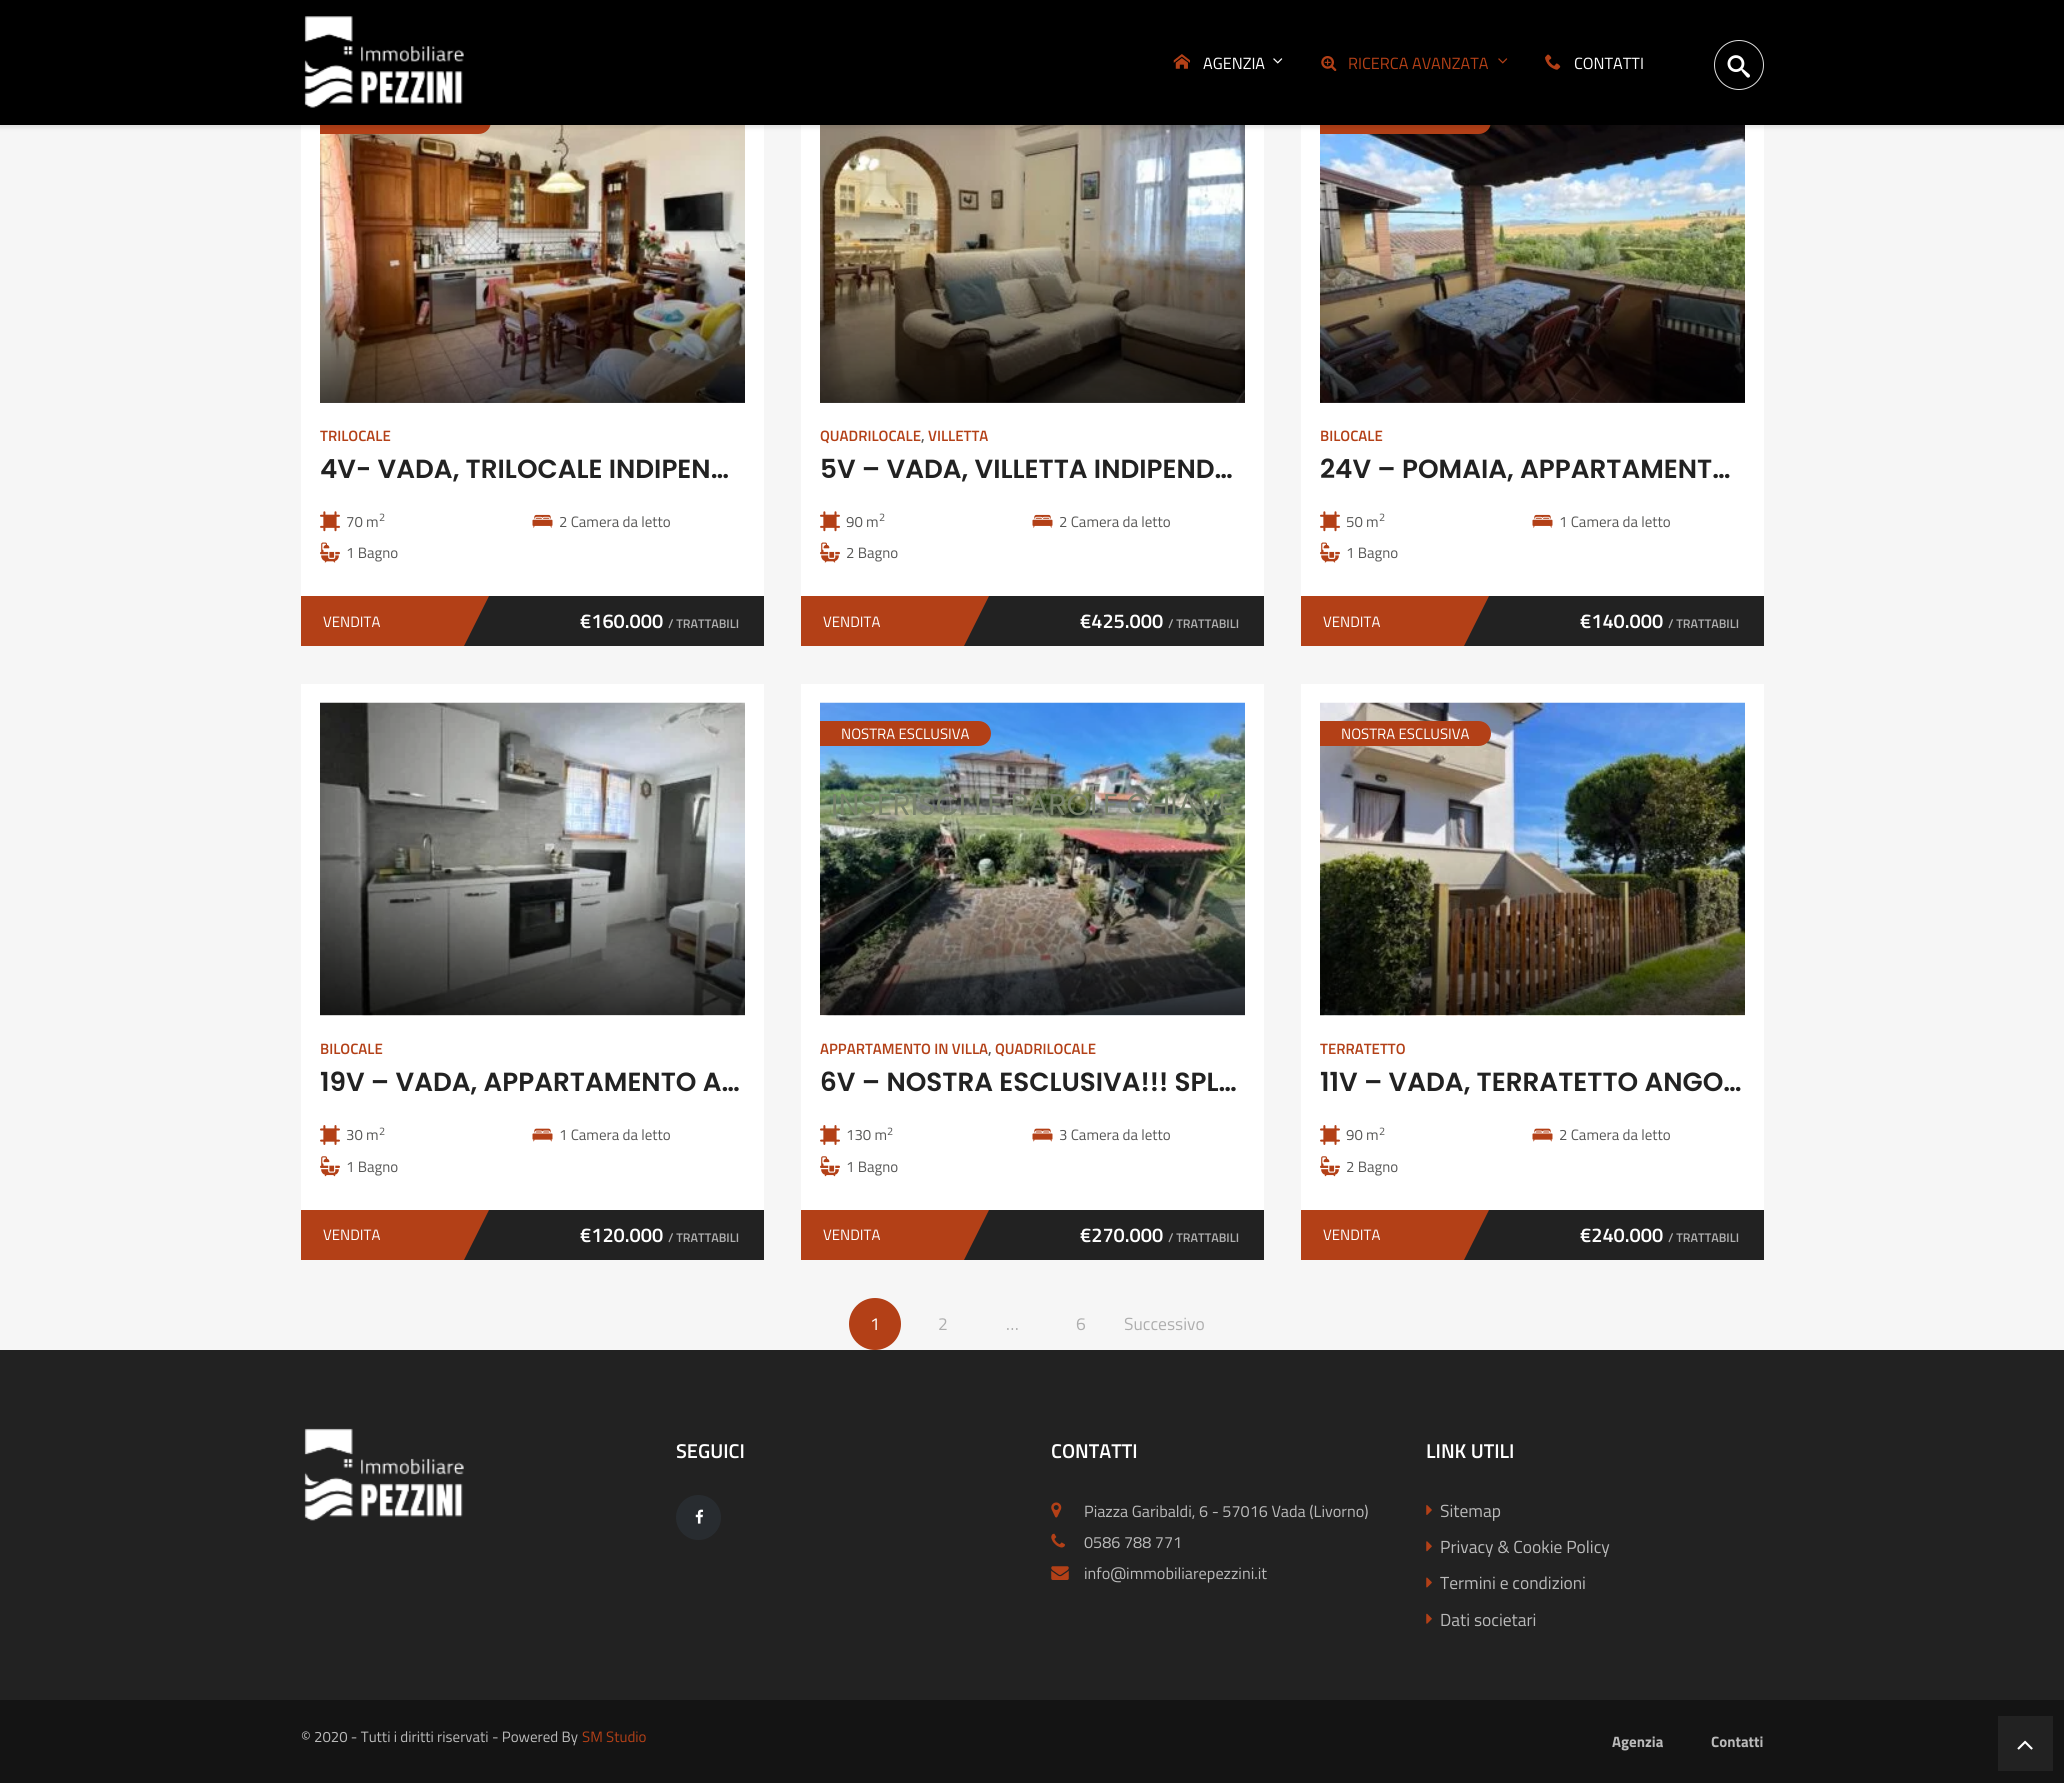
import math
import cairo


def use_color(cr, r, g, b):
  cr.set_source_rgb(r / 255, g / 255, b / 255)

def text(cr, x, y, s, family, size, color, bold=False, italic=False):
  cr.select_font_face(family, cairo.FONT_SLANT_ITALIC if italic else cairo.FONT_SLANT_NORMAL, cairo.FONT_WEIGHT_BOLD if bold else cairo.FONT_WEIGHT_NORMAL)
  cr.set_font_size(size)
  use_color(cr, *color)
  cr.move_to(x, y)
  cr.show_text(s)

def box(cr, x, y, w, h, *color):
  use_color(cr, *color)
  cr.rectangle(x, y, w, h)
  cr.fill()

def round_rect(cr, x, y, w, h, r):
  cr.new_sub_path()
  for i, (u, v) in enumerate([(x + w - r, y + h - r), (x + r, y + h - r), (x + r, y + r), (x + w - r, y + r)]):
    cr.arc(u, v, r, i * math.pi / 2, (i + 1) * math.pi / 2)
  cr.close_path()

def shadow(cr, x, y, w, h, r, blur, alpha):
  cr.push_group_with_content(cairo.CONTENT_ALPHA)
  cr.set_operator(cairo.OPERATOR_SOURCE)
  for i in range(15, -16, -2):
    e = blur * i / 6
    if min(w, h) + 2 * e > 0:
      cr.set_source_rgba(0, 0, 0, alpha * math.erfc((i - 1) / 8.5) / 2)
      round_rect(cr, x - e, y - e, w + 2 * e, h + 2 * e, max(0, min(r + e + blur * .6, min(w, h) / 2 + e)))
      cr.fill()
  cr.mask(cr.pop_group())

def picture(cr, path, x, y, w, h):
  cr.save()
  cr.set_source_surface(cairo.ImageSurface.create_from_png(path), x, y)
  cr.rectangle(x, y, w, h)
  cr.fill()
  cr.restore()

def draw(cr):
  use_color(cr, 34, 34, 34)
  cr.paint()
  box(cr, 0, 125, 2064, 1225, 246, 246, 246)
  box(cr, 301, 125, 463, 471, 255, 255, 255)
  picture(cr, "img_08.png", 320, 125, 425, 278)
  use_color(cr, 179, 64, 23)
  cr.new_path()
  cr.move_to(320, 109)
  cr.line_to(478.5, 109)
  cr.curve_to(485.5, 109, 491, 114.5, 491, 121.5)
  cr.curve_to(491, 128.5, 485.5, 134, 478.5, 134)
  cr.line_to(320, 134)
  cr.close_path()
  cr.fill()
  box(cr, 801, 125, 463, 471, 255, 255, 255)
  picture(cr, "img_12.png", 820, 125, 425, 278)
  box(cr, 1301, 125, 463, 471, 255, 255, 255)
  picture(cr, "img_13.png", 1320, 125, 425, 278)
  use_color(cr, 179, 64, 23)
  cr.new_path()
  cr.move_to(1320, 109)
  cr.line_to(1478.5, 109)
  cr.curve_to(1485.5, 109, 1491, 114.5, 1491, 121.5)
  cr.curve_to(1491, 128.5, 1485.5, 134, 1478.5, 134)
  cr.line_to(1320, 134)
  cr.close_path()
  cr.fill()
  use_color(cr, 0, 0, 0)
  shadow(cr, -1, -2, 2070, 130, 0, 2, 0.1)
  box(cr, 0, 0, 2064, 125, 0, 0, 0)
  picture(cr, "img_01.png", 304, 16, 160, 92)
  picture(cr, "img_02.png", 1173, 54, 17, 15)
  picture(cr, "img_03.png", 1273, 58, 10, 6)
  picture(cr, "img_04.png", 1321, 56, 16, 16)
  picture(cr, "img_05.png", 1498, 58, 10, 6)
  picture(cr, "img_06.png", 1545, 54, 16, 16)
  cr.arc(1739, 65, 24.5, 0, 2 * math.pi)
  use_color(cr, 221, 221, 221)
  cr.set_line_width(1)
  cr.stroke()
  picture(cr, "img_07.png", 1727, 55, 23, 23)
  gradient = cairo.LinearGradient(533, 90, 533, 403)
  gradient.add_color_stop_rgba(0, 0, 0, 0, 0)
  gradient.add_color_stop_rgba(0.5, 0, 0, 0, 0)
  gradient.add_color_stop_rgba(1, 0, 0, 0, 0.7)
  cr.set_source(gradient)
  cr.rectangle(320, 251, 425, 152)
  cr.fill()
  picture(cr, "img_09.png", 320, 511, 20, 21)
  picture(cr, "img_10.png", 532, 514, 21, 14)
  picture(cr, "img_11.png", 320, 542, 20, 21)
  box(cr, 464, 596, 300, 50, 34, 34, 34)
  box(cr, 301, 596, 163, 50, 179, 64, 23)
  cr.new_path()
  cr.move_to(464, 596)
  cr.line_to(489, 596)
  cr.line_to(464, 646)
  cr.close_path()
  cr.fill()
  gradient = cairo.LinearGradient(1033, 90, 1033, 403)
  gradient.add_color_stop_rgba(0, 0, 0, 0, 0)
  gradient.add_color_stop_rgba(0.5, 0, 0, 0, 0)
  gradient.add_color_stop_rgba(1, 0, 0, 0, 0.7)
  cr.set_source(gradient)
  cr.rectangle(820, 251, 425, 152)
  cr.fill()
  picture(cr, "img_09.png", 820, 511, 20, 21)
  picture(cr, "img_10.png", 1032, 514, 21, 14)
  picture(cr, "img_11.png", 820, 542, 20, 21)
  box(cr, 964, 596, 300, 50, 34, 34, 34)
  box(cr, 801, 596, 163, 50, 179, 64, 23)
  cr.new_path()
  cr.move_to(964, 596)
  cr.line_to(989, 596)
  cr.line_to(964, 646)
  cr.close_path()
  cr.fill()
  gradient = cairo.LinearGradient(1533, 90, 1533, 403)
  gradient.add_color_stop_rgba(0, 0, 0, 0, 0)
  gradient.add_color_stop_rgba(0.5, 0, 0, 0, 0)
  gradient.add_color_stop_rgba(1, 0, 0, 0, 0.7)
  cr.set_source(gradient)
  cr.rectangle(1320, 251, 425, 152)
  cr.fill()
  picture(cr, "img_09.png", 1320, 511, 20, 21)
  picture(cr, "img_10.png", 1532, 514, 21, 14)
  picture(cr, "img_11.png", 1320, 542, 20, 21)
  box(cr, 1464, 596, 300, 50, 34, 34, 34)
  box(cr, 1301, 596, 163, 50, 179, 64, 23)
  cr.new_path()
  cr.move_to(1464, 596)
  cr.line_to(1489, 596)
  cr.line_to(1464, 646)
  cr.close_path()
  cr.fill()
  box(cr, 301, 684, 463, 526, 255, 255, 255)
  picture(cr, "img_14.png", 320, 702, 425, 314)
  picture(cr, "img_15.png", 320, 1125, 20, 20)
  picture(cr, "img_16.png", 532, 1128, 21, 14)
  picture(cr, "img_17.png", 320, 1156, 20, 21)
  box(cr, 464, 1210, 300, 50, 34, 34, 34)
  box(cr, 301, 1210, 163, 50, 179, 64, 23)
  cr.new_path()
  cr.move_to(464, 1210)
  cr.line_to(489, 1210)
  cr.line_to(464, 1260)
  cr.close_path()
  cr.fill()
  box(cr, 801, 684, 463, 526, 255, 255, 255)
  picture(cr, "img_18.png", 820, 702, 425, 314)
  use_color(cr, 179, 64, 23)
  cr.new_path()
  cr.move_to(820, 721)
  cr.line_to(978.5, 721)
  cr.curve_to(985.5, 721, 991, 726.5, 991, 733.5)
  cr.curve_to(991, 740.5, 985.5, 746, 978.5, 746)
  cr.line_to(820, 746)
  cr.close_path()
  cr.fill()
  picture(cr, "img_15.png", 820, 1125, 20, 20)
  picture(cr, "img_16.png", 1032, 1128, 21, 14)
  picture(cr, "img_17.png", 820, 1156, 20, 21)
  box(cr, 964, 1210, 300, 50, 34, 34, 34)
  box(cr, 801, 1210, 163, 50, 179, 64, 23)
  cr.new_path()
  cr.move_to(964, 1210)
  cr.line_to(989, 1210)
  cr.line_to(964, 1260)
  cr.close_path()
  cr.fill()
  box(cr, 1301, 684, 463, 526, 255, 255, 255)
  picture(cr, "img_19.png", 1320, 702, 425, 314)
  use_color(cr, 179, 64, 23)
  cr.new_path()
  cr.move_to(1320, 721)
  cr.line_to(1478.5, 721)
  cr.curve_to(1485.5, 721, 1491, 726.5, 1491, 733.5)
  cr.curve_to(1491, 740.5, 1485.5, 746, 1478.5, 746)
  cr.line_to(1320, 746)
  cr.close_path()
  cr.fill()
  picture(cr, "img_15.png", 1320, 1125, 20, 20)
  picture(cr, "img_16.png", 1532, 1128, 21, 14)
  picture(cr, "img_17.png", 1320, 1156, 20, 21)
  box(cr, 1464, 1210, 300, 50, 34, 34, 34)
  box(cr, 1301, 1210, 163, 50, 179, 64, 23)
  cr.new_path()
  cr.move_to(1464, 1210)
  cr.line_to(1489, 1210)
  cr.line_to(1464, 1260)
  cr.close_path()
  cr.fill()
  cr.arc(875, 1324, 26, 0, 2 * math.pi)
  cr.fill()
  picture(cr, "img_20.png", 304, 1428, 160, 93)
  use_color(cr, 40, 44, 48)
  cr.arc(698.5, 1517.5, 22.5, 0, 2 * math.pi)
  cr.fill()
  picture(cr, "img_21.png", 695, 1509, 9, 15)
  picture(cr, "img_22.png", 1051, 1502, 11, 16)
  picture(cr, "img_23.png", 1051, 1533, 14, 15)
  picture(cr, "img_24.png", 1051, 1566, 18, 14)
  picture(cr, "img_25.png", 1426, 1505, 6, 10)
  picture(cr, "img_26.png", 1426, 1541, 6, 11)
  picture(cr, "img_27.png", 1426, 1577, 6, 11)
  picture(cr, "img_28.png", 1426, 1613, 6, 11)
  box(cr, 0, 1700, 2064, 83, 20, 20, 20)
  box(cr, 1998, 1716, 55, 55, 34, 34, 34)
  picture(cr, "img_29.png", 2017, 1740, 16, 10)
  text(cr, 1203, 69, "AGENZIA", "Titillium Web", 16.25, (255, 255, 255))
  text(cr, 1348, 69, "RICERCA AVANZATA", "Titillium Web", 16.25, (179, 64, 23))
  text(cr, 1574, 69, "CONTATTI", "Titillium Web", 16.25, (255, 255, 255))
  text(cr, 320, 441, "TRILOCALE", "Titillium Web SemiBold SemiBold", 15, (179, 64, 23))
  text(cr, 320, 478, "4V- VADA, TRILOCALE INDIPEN…", "Poppins SemiBold", 26.25, (34, 34, 34))
  text(cr, 346, 527, "70 m", "Titillium Web", 15, (87, 87, 86))
  text(cr, 379, 521, "2", "Titillium Web", 11, (87, 87, 86))
  text(cr, 559, 527, "2 Camera da letto", "Titillium Web", 15, (87, 87, 86))
  text(cr, 346, 558, "1 Bagno", "Titillium Web", 15, (87, 87, 86))
  text(cr, 323, 627, "VENDITA", "Titillium Web", 15, (255, 255, 255))
  text(cr, 580, 628, "€160.000", "Titillium Web SemiBold SemiBold", 20, (255, 255, 255))
  text(cr, 668, 628, "/ TRATTABILI", "Titillium Web SemiBold SemiBold", 12.5, (174, 174, 174))
  text(cr, 820, 441, "QUADRILOCALE", "Titillium Web SemiBold SemiBold", 15, (179, 64, 23))
  text(cr, 921, 441, ",", "Titillium Web SemiBold SemiBold", 15, (87, 87, 86))
  text(cr, 928, 441, "VILLETTA", "Titillium Web SemiBold SemiBold", 15, (179, 64, 23))
  text(cr, 820, 478, "5V – VADA, VILLETTA INDIPEND…", "Poppins SemiBold", 26.25, (34, 34, 34))
  text(cr, 846, 527, "90 m", "Titillium Web", 15, (87, 87, 86))
  text(cr, 879, 521, "2", "Titillium Web", 11, (87, 87, 86))
  text(cr, 1059, 527, "2 Camera da letto", "Titillium Web", 15, (87, 87, 86))
  text(cr, 846, 558, "2 Bagno", "Titillium Web", 15, (87, 87, 86))
  text(cr, 823, 627, "VENDITA", "Titillium Web", 15, (255, 255, 255))
  text(cr, 1080, 628, "€425.000", "Titillium Web SemiBold SemiBold", 20, (255, 255, 255))
  text(cr, 1168, 628, "/ TRATTABILI", "Titillium Web SemiBold SemiBold", 12.5, (174, 174, 174))
  text(cr, 1320, 441, "BILOCALE", "Titillium Web SemiBold SemiBold", 15, (179, 64, 23))
  text(cr, 1320, 478, "24V – POMAIA, APPARTAMENT…", "Poppins SemiBold", 26.25, (34, 34, 34))
  text(cr, 1346, 527, "50 m", "Titillium Web", 15, (87, 87, 86))
  text(cr, 1379, 521, "2", "Titillium Web", 11, (87, 87, 86))
  text(cr, 1559, 527, "1 Camera da letto", "Titillium Web", 15, (87, 87, 86))
  text(cr, 1346, 558, "1 Bagno", "Titillium Web", 15, (87, 87, 86))
  text(cr, 1323, 627, "VENDITA", "Titillium Web", 15, (255, 255, 255))
  text(cr, 1580, 628, "€140.000", "Titillium Web SemiBold SemiBold", 20, (255, 255, 255))
  text(cr, 1668, 628, "/ TRATTABILI", "Titillium Web SemiBold SemiBold", 12.5, (174, 174, 174))
  text(cr, 320, 1054, "BILOCALE", "Titillium Web SemiBold SemiBold", 15, (179, 64, 23))
  text(cr, 320, 1091, "19V – VADA, APPARTAMENTO A…", "Poppins SemiBold", 26.25, (34, 34, 34))
  text(cr, 346, 1140, "30 m", "Titillium Web", 15, (87, 87, 86))
  text(cr, 379, 1135, "2", "Titillium Web", 11, (87, 87, 86))
  text(cr, 559, 1140, "1 Camera da letto", "Titillium Web", 15, (87, 87, 86))
  text(cr, 346, 1172, "1 Bagno", "Titillium Web", 15, (87, 87, 86))
  text(cr, 323, 1240, "VENDITA", "Titillium Web", 15, (255, 255, 255))
  text(cr, 580, 1242, "€120.000", "Titillium Web SemiBold SemiBold", 20, (255, 255, 255))
  text(cr, 668, 1242, "/ TRATTABILI", "Titillium Web SemiBold SemiBold", 12.5, (174, 174, 174))
  text(cr, 841, 739, "NOSTRA ESCLUSIVA", "Titillium Web", 15, (255, 255, 255))
  text(cr, 820, 1054, "APPARTAMENTO IN VILLA", "Titillium Web SemiBold SemiBold", 15, (179, 64, 23))
  text(cr, 988, 1054, ",", "Titillium Web SemiBold SemiBold", 15, (87, 87, 86))
  text(cr, 995, 1054, "QUADRILOCALE", "Titillium Web SemiBold SemiBold", 15, (179, 64, 23))
  text(cr, 820, 1091, "6V – NOSTRA ESCLUSIVA!!! SPL…", "Poppins SemiBold", 26.25, (34, 34, 34))
  text(cr, 846, 1140, "130 m", "Titillium Web", 15, (87, 87, 86))
  text(cr, 887, 1135, "2", "Titillium Web", 11, (87, 87, 86))
  text(cr, 1059, 1140, "3 Camera da letto", "Titillium Web", 15, (87, 87, 86))
  text(cr, 846, 1172, "1 Bagno", "Titillium Web", 15, (87, 87, 86))
  text(cr, 823, 1240, "VENDITA", "Titillium Web", 15, (255, 255, 255))
  text(cr, 1080, 1242, "€270.000", "Titillium Web SemiBold SemiBold", 20, (255, 255, 255))
  text(cr, 1168, 1242, "/ TRATTABILI", "Titillium Web SemiBold SemiBold", 12.5, (174, 174, 174))
  text(cr, 1341, 739, "NOSTRA ESCLUSIVA", "Titillium Web", 15, (255, 255, 255))
  text(cr, 1320, 1054, "TERRATETTO", "Titillium Web SemiBold SemiBold", 15, (179, 64, 23))
  text(cr, 1320, 1091, "11V – VADA, TERRATETTO ANGO…", "Poppins SemiBold", 26.25, (34, 34, 34))
  text(cr, 1346, 1140, "90 m", "Titillium Web", 15, (87, 87, 86))
  text(cr, 1379, 1135, "2", "Titillium Web", 11, (87, 87, 86))
  text(cr, 1559, 1140, "2 Camera da letto", "Titillium Web", 15, (87, 87, 86))
  text(cr, 1346, 1172, "2 Bagno", "Titillium Web", 15, (87, 87, 86))
  text(cr, 1323, 1240, "VENDITA", "Titillium Web", 15, (255, 255, 255))
  text(cr, 1580, 1242, "€240.000", "Titillium Web SemiBold SemiBold", 20, (255, 255, 255))
  text(cr, 1668, 1242, "/ TRATTABILI", "Titillium Web SemiBold SemiBold", 12.5, (174, 174, 174))
  text(cr, 870, 1330, "1", "Titillium Web", 17.5, (255, 255, 255))
  text(cr, 938, 1330, "2", "Titillium Web", 17.5, (174, 174, 174))
  text(cr, 1006, 1330, "…", "Titillium Web", 17.5, (174, 174, 174))
  text(cr, 1076, 1330, "6", "Titillium Web", 17.5, (174, 174, 174))
  text(cr, 1124, 1330, "Successivo", "Titillium Web", 17.5, (174, 174, 174))
  text(cr, 676, 1458, "SEGUICI", "Titillium Web SemiBold SemiBold", 20, (255, 255, 255))
  text(cr, 1051, 1458, "CONTATTI", "Titillium Web SemiBold SemiBold", 20, (255, 255, 255))
  text(cr, 1084, 1517, "Piazza Garibaldi, 6 - 57016 Vada (Livorno)", "Titillium Web", 16.25, (186, 186, 186))
  text(cr, 1084, 1548, "0586 788 771", "Titillium Web", 16.25, (186, 186, 186))
  text(cr, 1084, 1579, "info@immobiliarepezzini.it", "Titillium Web", 16.25, (186, 186, 186))
  text(cr, 1426, 1458, "LINK UTILI", "Titillium Web SemiBold SemiBold", 20, (255, 255, 255))
  text(cr, 1440, 1517, "Sitemap", "Titillium Web", 17.5, (186, 186, 186))
  text(cr, 1440, 1553, "Privacy & Cookie Policy", "Titillium Web", 17.5, (186, 186, 186))
  text(cr, 1440, 1589, "Termini e condizioni", "Titillium Web", 17.5, (186, 186, 186))
  text(cr, 1440, 1626, "Dati societari", "Titillium Web", 17.5, (186, 186, 186))
  text(cr, 301, 1742, "© 2020 - Tutti i diritti riservati - Powered By", "Titillium Web", 15, (186, 186, 186))
  text(cr, 582, 1742, "SM Studio", "Titillium Web", 15, (179, 64, 23))
  text(cr, 1612, 1747, "Agenzia", "Titillium Web", 15, (186, 186, 186), bold=True)
  text(cr, 1711, 1747, "Contatti", "Titillium Web", 15, (186, 186, 186), bold=True)
  text(cr, 831, 815, "INSERISCI LE PAROLE CHIAVE", "Poppins", 30, (121, 130, 108))


surface = cairo.ImageSurface(cairo.FORMAT_RGB24, 2064, 1783)
cr = cairo.Context(surface)
options = cairo.FontOptions()
options.set_hint_metrics(cairo.HINT_METRICS_OFF)
options.set_hint_style(cairo.HINT_STYLE_NONE)
cr.set_font_options(options)
cr.set_miter_limit(4)
draw(cr)
surface.write_to_png("out.png")
